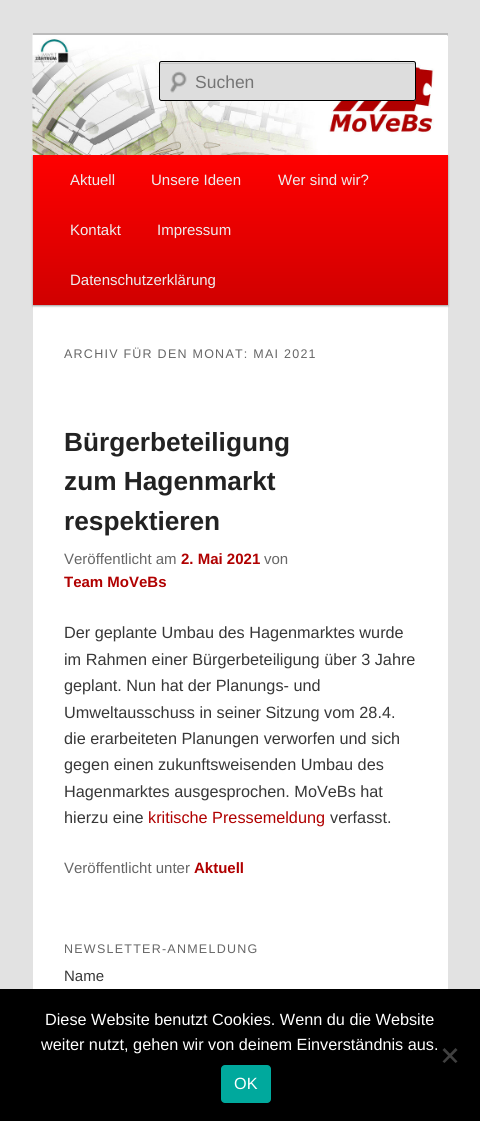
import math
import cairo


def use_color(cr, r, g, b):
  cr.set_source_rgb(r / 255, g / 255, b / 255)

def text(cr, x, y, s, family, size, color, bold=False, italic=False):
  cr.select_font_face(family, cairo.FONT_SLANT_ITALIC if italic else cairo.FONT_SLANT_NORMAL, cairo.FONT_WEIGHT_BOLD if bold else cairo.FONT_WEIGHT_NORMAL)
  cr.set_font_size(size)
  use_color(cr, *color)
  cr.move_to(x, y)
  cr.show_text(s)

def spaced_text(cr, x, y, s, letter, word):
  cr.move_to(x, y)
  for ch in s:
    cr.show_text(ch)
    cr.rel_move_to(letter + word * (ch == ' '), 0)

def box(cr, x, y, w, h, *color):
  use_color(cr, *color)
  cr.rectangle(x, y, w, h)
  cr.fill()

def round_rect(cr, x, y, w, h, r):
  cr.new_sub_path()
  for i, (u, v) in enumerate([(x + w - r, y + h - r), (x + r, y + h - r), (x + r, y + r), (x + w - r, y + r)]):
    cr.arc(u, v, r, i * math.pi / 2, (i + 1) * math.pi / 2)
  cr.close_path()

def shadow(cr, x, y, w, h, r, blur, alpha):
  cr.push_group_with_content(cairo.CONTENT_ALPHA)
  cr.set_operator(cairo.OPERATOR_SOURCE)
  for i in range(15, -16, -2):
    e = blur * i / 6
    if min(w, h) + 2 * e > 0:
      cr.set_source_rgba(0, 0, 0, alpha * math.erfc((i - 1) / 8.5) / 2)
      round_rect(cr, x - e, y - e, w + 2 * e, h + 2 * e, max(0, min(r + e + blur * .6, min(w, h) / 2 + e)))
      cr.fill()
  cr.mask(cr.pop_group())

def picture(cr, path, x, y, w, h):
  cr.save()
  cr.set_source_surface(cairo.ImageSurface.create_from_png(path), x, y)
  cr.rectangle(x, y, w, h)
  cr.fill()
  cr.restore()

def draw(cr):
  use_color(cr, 226, 226, 226)
  cr.paint()
  box(cr, 33, 36, 415, 953, 255, 255, 255)
  box(cr, 33, 33, 415, 3, 187, 187, 187)
  use_color(cr, 0, 0, 0)
  shadow(cr, 33, 156, 415, 150, 0, 1, 0.4)
  picture(cr, "img_01.png", 32, 35, 416, 120)
  use_color(cr, 221, 221, 221)
  round_rect(cr, 159, 61, 257, 40, 2.5)
  cr.fill()
  picture(cr, "img_02.png", 170, 71, 17, 22)
  use_color(cr, 199, 199, 199)
  cr.new_path()
  cr.move_to(161, 64)
  cr.line_to(414, 64)
  cr.line_to(415, 65)
  cr.curve_to(415, 64, 415, 63, 414, 63)
  cr.line_to(160, 63)
  cr.line_to(160, 65)
  cr.close_path()
  cr.fill()
  round_rect(cr, 159.5, 61.5, 256, 39, 2)
  use_color(cr, 0, 0, 0)
  cr.set_line_width(1)
  cr.stroke()
  gradient = cairo.LinearGradient(240, 155, 240, 305)
  gradient.add_color_stop_rgba(0, 1, 0, 0, 1)
  gradient.add_color_stop_rgba(1, 0.816, 0, 0, 1)
  cr.set_source(gradient)
  cr.rectangle(33, 155, 415, 150)
  cr.fill()
  box(cr, 0, 989, 480, 132, 0, 0, 0)
  use_color(cr, 64, 64, 64)
  cr.new_path()
  cr.move_to(455.5, 1048)
  cr.line_to(457.5, 1050)
  cr.line_to(444.5, 1063)
  cr.line_to(442.5, 1061.5)
  cr.close_path()
  cr.fill()
  cr.new_path()
  cr.move_to(442.5, 1050)
  cr.line_to(444.5, 1048)
  cr.line_to(457.5, 1061.5)
  cr.line_to(455.5, 1063)
  cr.close_path()
  cr.fill()
  use_color(cr, 0, 169, 157)
  round_rect(cr, 221, 1065, 50, 38, 4)
  cr.fill()
  text(cr, 195, 88, "Suchen", "Liberation Sans", 17.5, (117, 117, 117))
  text(cr, 70, 185, "Aktuell", "Liberation Sans", 15, (238, 238, 238))
  text(cr, 151, 185, "Unsere Ideen", "Liberation Sans", 15, (238, 238, 238))
  text(cr, 278, 185, "Wer sind wir?", "Liberation Sans", 15, (238, 238, 238))
  text(cr, 70, 235, "Kontakt", "Liberation Sans", 15, (238, 238, 238))
  text(cr, 157, 235, "Impressum", "Liberation Sans", 15, (238, 238, 238))
  text(cr, 70, 285, "Datenschutzerklärung", "Liberation Sans", 15, (238, 238, 238))
  cr.set_font_size(12.5)
  use_color(cr, 102, 102, 102)
  spaced_text(cr, 64, 358, "ARCHIV FÜR DEN MONAT: MAI 2021", 1.25, 0)
  text(cr, 64, 451, "Bürgerbeteiligung", "Liberation Sans", 26.25, (34, 34, 34), bold=True)
  text(cr, 64, 490, "zum Hagenmarkt", "Liberation Sans", 26.25, (34, 34, 34), bold=True)
  text(cr, 64, 530, "respektieren", "Liberation Sans", 26.25, (34, 34, 34), bold=True)
  text(cr, 64, 564, "Veröffentlicht am", "Liberation Sans", 15, (102, 102, 102))
  text(cr, 181, 564, "2. Mai 2021", "Liberation Sans", 15, (176, 0, 0), bold=True)
  text(cr, 264, 564, "von", "Liberation Sans", 15, (102, 102, 102))
  text(cr, 64, 587, "Team MoVeBs", "Liberation Sans", 15, (176, 0, 0), bold=True)
  text(cr, 64, 638, "Der geplante Umbau des Hagenmarktes wurde", "Liberation Sans", 16.25, (55, 55, 55))
  text(cr, 64, 665, "im Rahmen einer Bürgerbeteiligung über 3 Jahre", "Liberation Sans", 16.25, (55, 55, 55))
  text(cr, 64, 691, "geplant. Nun hat der Planungs- und", "Liberation Sans", 16.25, (55, 55, 55))
  text(cr, 64, 718, "Umweltausschuss in seiner Sitzung vom 28.4.", "Liberation Sans", 16.25, (55, 55, 55))
  text(cr, 64, 744, "die erarbeiteten Planungen verworfen und sich", "Liberation Sans", 16.25, (55, 55, 55))
  text(cr, 64, 770, "gegen einen zukunftsweisenden Umbau des", "Liberation Sans", 16.25, (55, 55, 55))
  text(cr, 64, 797, "Hagenmarktes ausgesprochen. MoVeBs hat", "Liberation Sans", 16.25, (55, 55, 55))
  text(cr, 64, 823, "hierzu eine", "Liberation Sans", 16.25, (55, 55, 55))
  text(cr, 148, 823, "kritische Pressemeldung", "Liberation Sans", 16.25, (176, 0, 0))
  text(cr, 330, 823, "verfasst.", "Liberation Sans", 16.25, (55, 55, 55))
  text(cr, 64, 873, "Veröffentlicht unter", "Liberation Sans", 15, (102, 102, 102))
  text(cr, 194, 873, "Aktuell", "Liberation Sans", 15, (176, 0, 0), bold=True)
  cr.select_font_face("Liberation Sans")
  cr.set_font_size(12.5)
  use_color(cr, 102, 102, 102)
  spaced_text(cr, 64, 953, "NEWSLETTER-ANMELDUNG", 1.25, 0)
  text(cr, 64, 981, "Name", "Liberation Sans", 15, (55, 55, 55))
  text(cr, 45, 1025, "Diese Website benutzt Cookies. Wenn du die Website", "Liberation Sans", 16.25, (255, 255, 255))
  text(cr, 41, 1050, "weiter nutzt, gehen wir von deinem Einverständnis aus.", "Liberation Sans", 16.25, (255, 255, 255))
  text(cr, 234, 1089, "OK", "Liberation Sans", 16.25, (255, 255, 255))


surface = cairo.ImageSurface(cairo.FORMAT_RGB24, 480, 1121)
cr = cairo.Context(surface)
options = cairo.FontOptions()
options.set_hint_metrics(cairo.HINT_METRICS_OFF)
options.set_hint_style(cairo.HINT_STYLE_NONE)
cr.set_font_options(options)
cr.set_miter_limit(4)
draw(cr)
surface.write_to_png("out.png")
